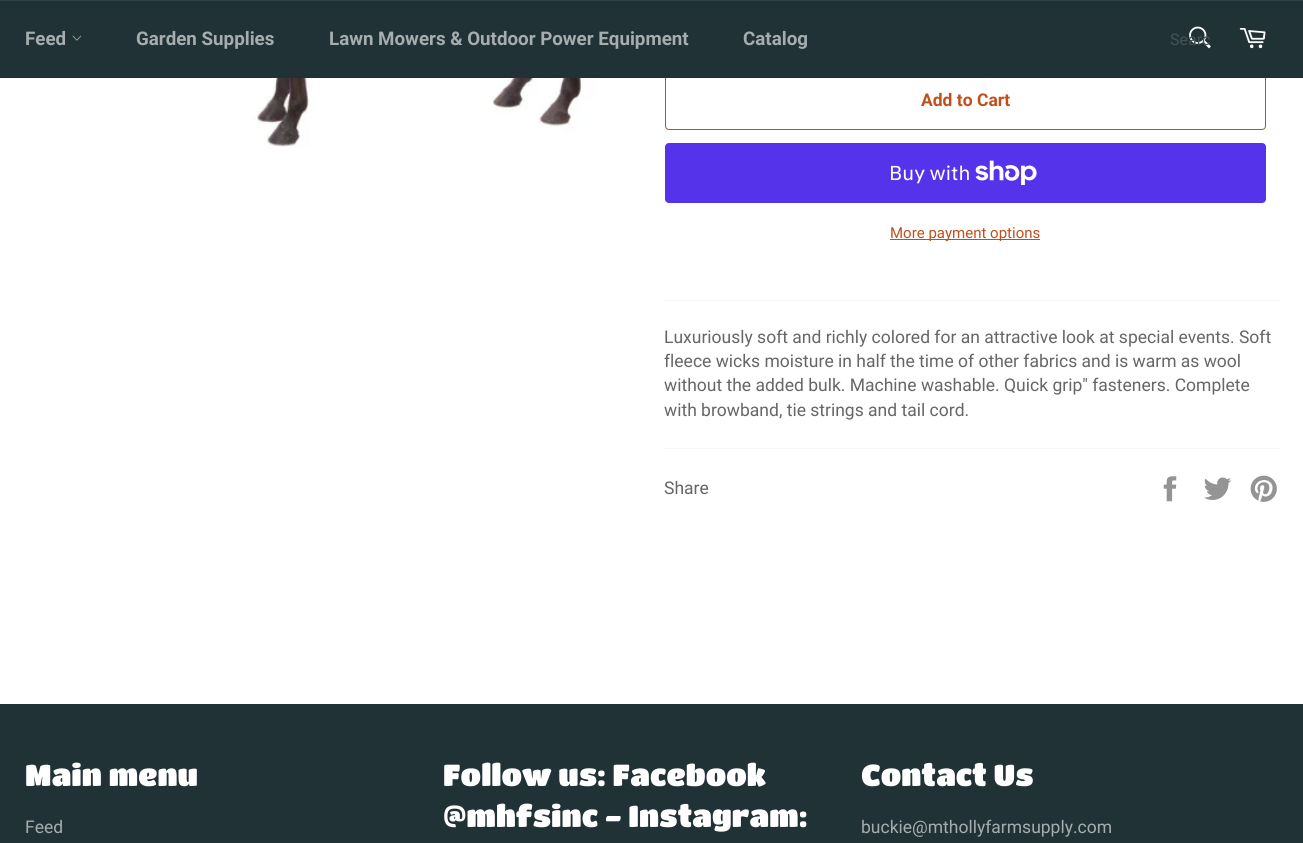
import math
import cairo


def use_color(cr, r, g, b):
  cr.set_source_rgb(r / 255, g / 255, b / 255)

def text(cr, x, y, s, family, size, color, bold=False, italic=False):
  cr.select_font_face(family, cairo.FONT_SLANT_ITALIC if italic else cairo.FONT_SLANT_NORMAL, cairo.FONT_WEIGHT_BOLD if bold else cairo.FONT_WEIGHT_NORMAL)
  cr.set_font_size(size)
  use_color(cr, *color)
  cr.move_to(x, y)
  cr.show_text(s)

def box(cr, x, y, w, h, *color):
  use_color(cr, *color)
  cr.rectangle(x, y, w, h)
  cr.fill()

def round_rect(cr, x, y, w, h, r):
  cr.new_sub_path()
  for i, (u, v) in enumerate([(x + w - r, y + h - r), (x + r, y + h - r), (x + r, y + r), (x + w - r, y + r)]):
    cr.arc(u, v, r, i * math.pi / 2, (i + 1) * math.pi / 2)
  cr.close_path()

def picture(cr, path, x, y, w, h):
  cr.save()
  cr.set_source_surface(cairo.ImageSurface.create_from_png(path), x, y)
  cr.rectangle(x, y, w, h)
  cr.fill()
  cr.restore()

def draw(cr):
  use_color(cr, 255, 255, 255)
  cr.paint()
  round_rect(cr, 665.5, 70.5, 600, 59, 3.5)
  use_color(cr, 192, 79, 29)
  cr.set_line_width(1)
  cr.stroke()
  box(cr, 0, 1, 1303, 77, 33, 50, 54)
  box(cr, 0, 0, 1303, 1, 43, 65, 70)
  picture(cr, "img_01.png", 72, 35, 10, 6)
  picture(cr, "img_02.png", 1189, 26, 22, 23)
  picture(cr, "img_03.png", 1239, 28, 27, 21)
  picture(cr, "img_04.png", 251, 78, 350, 70)
  use_color(cr, 84, 51, 235)
  round_rect(cr, 665, 143, 601, 60, 4)
  cr.fill()
  picture(cr, "img_05.png", 975, 160, 62, 25)
  box(cr, 890, 239, 150, 1, 192, 79, 29)
  box(cr, 665, 300, 614, 1, 247, 247, 247)
  box(cr, 665, 448, 614, 1, 247, 247, 247)
  picture(cr, "img_06.png", 1163, 476, 14, 26)
  picture(cr, "img_07.png", 1204, 477, 28, 23)
  picture(cr, "img_08.png", 1250, 475, 27, 27)
  box(cr, 0, 704, 1303, 139, 33, 50, 54)
  text(cr, 25, 45, "Feed", "Roboto", 18.75, (166, 173, 175), bold=True)
  text(cr, 136, 45, "Garden Supplies", "Roboto", 18.75, (166, 173, 175), bold=True)
  text(cr, 329, 45, "Lawn Mowers & Outdoor Power Equipment", "Roboto", 18.75, (166, 173, 175), bold=True)
  text(cr, 743, 45, "Catalog", "Roboto", 18.75, (166, 173, 175), bold=True)
  cr.save()
  cr.rectangle(1170, 30, 40, 19)
  cr.clip()
  text(cr, 1170, 45, "Searc", "Roboto", 16, (68, 82, 86))
  cr.restore()
  text(cr, 921, 106, "Add to Cart", "Roboto", 17.5, (192, 79, 29), bold=True)
  text(cr, 889, 180, "Buy with", "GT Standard", 20, (255, 255, 255))
  text(cr, 890, 238, "More payment options", "Roboto", 15, (192, 79, 29))
  text(cr, 664, 343, "Luxuriously soft and richly colored for an attractive look at special events. Soft", "Roboto", 17.5, (102, 102, 102))
  text(cr, 664, 367, "fleece wicks moisture in half the time of other fabrics and is warm as wool", "Roboto", 17.5, (102, 102, 102))
  text(cr, 664, 391, "without the added bulk. Machine washable. Quick grip\" fasteners. Complete", "Roboto", 17.5, (102, 102, 102))
  text(cr, 664, 416, "with browband, tie strings and tail cord.", "Roboto", 17.5, (102, 102, 102))
  text(cr, 664, 494, "Share", "Roboto", 17.5, (102, 102, 102))
  text(cr, 25, 786, "Main menu", "Titan One", 30, (255, 255, 255))
  text(cr, 25, 833, "Feed", "Roboto", 17.5, (166, 173, 175))
  text(cr, 443, 786, "Follow us: Facebook", "Titan One", 30, (255, 255, 255))
  text(cr, 443, 827, "@mhfsinc - Instagram:", "Titan One", 30, (255, 255, 255))
  text(cr, 861, 786, "Contact Us", "Titan One", 30, (255, 255, 255))
  text(cr, 861, 833, "buckie@mthollyfarmsupply.com", "Roboto", 17.5, (166, 173, 175))


surface = cairo.ImageSurface(cairo.FORMAT_RGB24, 1303, 843)
cr = cairo.Context(surface)
options = cairo.FontOptions()
options.set_hint_metrics(cairo.HINT_METRICS_OFF)
options.set_hint_style(cairo.HINT_STYLE_NONE)
cr.set_font_options(options)
cr.set_miter_limit(4)
draw(cr)
surface.write_to_png("out.png")
